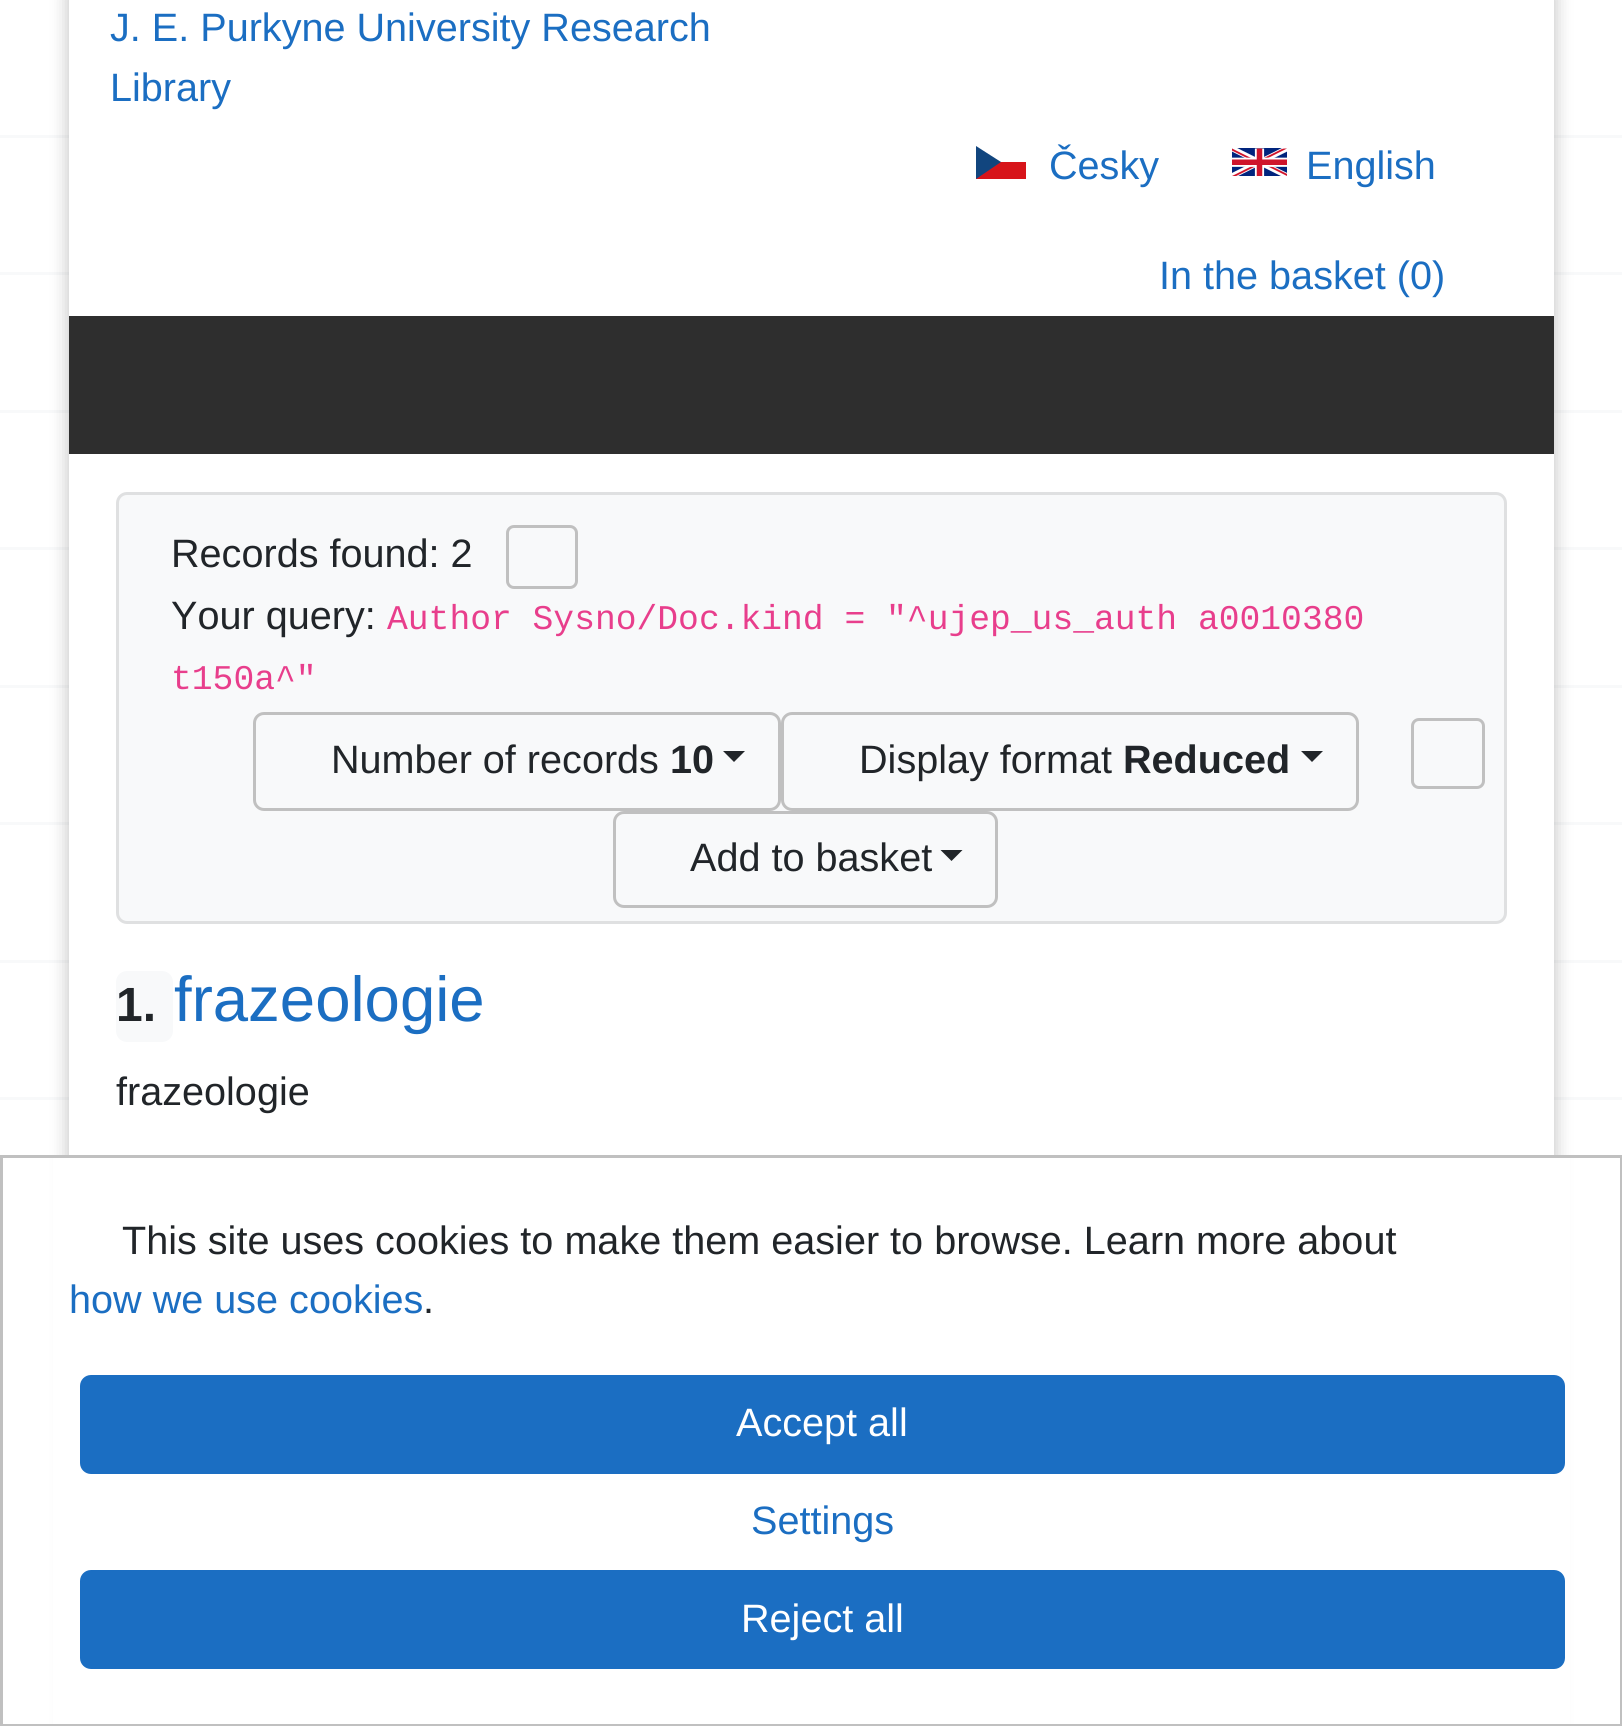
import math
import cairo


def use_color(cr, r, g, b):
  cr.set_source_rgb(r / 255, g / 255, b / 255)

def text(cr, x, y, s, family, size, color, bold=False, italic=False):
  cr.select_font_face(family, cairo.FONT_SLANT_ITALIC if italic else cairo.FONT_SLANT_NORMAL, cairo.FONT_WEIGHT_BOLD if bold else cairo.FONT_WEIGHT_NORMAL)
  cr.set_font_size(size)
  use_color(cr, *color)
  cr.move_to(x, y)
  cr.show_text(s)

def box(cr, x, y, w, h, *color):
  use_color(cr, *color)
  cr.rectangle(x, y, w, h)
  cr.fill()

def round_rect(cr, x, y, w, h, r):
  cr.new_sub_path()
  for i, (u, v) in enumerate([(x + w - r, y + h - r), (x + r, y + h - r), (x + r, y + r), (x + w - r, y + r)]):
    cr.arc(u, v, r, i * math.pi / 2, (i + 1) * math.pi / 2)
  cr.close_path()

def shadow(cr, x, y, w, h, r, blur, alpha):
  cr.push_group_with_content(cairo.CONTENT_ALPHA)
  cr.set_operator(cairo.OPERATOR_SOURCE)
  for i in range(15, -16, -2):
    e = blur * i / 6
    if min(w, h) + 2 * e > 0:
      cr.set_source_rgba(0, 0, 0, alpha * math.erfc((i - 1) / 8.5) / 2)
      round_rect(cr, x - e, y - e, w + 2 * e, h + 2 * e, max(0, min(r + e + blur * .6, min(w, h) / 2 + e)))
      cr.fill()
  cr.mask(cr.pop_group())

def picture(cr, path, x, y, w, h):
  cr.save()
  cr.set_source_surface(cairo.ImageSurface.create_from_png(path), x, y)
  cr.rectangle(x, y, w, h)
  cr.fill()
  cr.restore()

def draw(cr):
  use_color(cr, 255, 255, 255)
  cr.paint()
  box(cr, 0, 135, 1622, 3, 248, 249, 250)
  box(cr, 0, 272, 1622, 3, 248, 249, 250)
  box(cr, 0, 410, 1622, 3, 248, 249, 250)
  box(cr, 0, 547, 1622, 3, 248, 249, 250)
  box(cr, 0, 685, 1622, 3, 248, 249, 250)
  box(cr, 0, 822, 1622, 3, 248, 249, 250)
  box(cr, 0, 960, 1622, 3, 248, 249, 250)
  box(cr, 0, 1097, 1622, 3, 248, 249, 250)
  use_color(cr, 0, 0, 0)
  shadow(cr, 66, -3, 1491, 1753, 0, 8, 0.2)
  box(cr, 69, 0, 1485, 1155, 255, 255, 255)
  box(cr, 976, 162, 50, 17, 215, 20, 26)
  use_color(cr, 17, 69, 126)
  cr.new_path()
  cr.move_to(1001, 162)
  cr.line_to(976, 146)
  cr.line_to(976, 179)
  cr.close_path()
  cr.fill()
  picture(cr, "img_01.png", 1232, 148, 55, 28)
  box(cr, 69, 316, 1485, 138, 46, 46, 46)
  use_color(cr, 248, 249, 250)
  round_rect(cr, 117.5, 493.5, 1388, 429, 9.5)
  cr.fill_preserve()
  use_color(cr, 223, 224, 225)
  cr.set_line_width(3)
  cr.stroke()
  round_rect(cr, 507.5, 526.5, 69, 61, 6.5)
  use_color(cr, 192, 192, 192)
  cr.stroke()
  round_rect(cr, 254.5, 713.5, 525, 96, 9.5)
  cr.stroke()
  use_color(cr, 33, 37, 41)
  cr.new_path()
  cr.move_to(723, 751)
  cr.line_to(745, 751)
  cr.line_to(734, 762)
  cr.close_path()
  cr.fill()
  round_rect(cr, 782.5, 713.5, 575, 96, 9.5)
  use_color(cr, 192, 192, 192)
  cr.stroke()
  use_color(cr, 33, 37, 41)
  cr.new_path()
  cr.move_to(1301, 751)
  cr.line_to(1323, 751)
  cr.line_to(1312, 762)
  cr.close_path()
  cr.fill()
  round_rect(cr, 614.5, 812.5, 382, 94, 9.5)
  use_color(cr, 192, 192, 192)
  cr.stroke()
  use_color(cr, 33, 37, 41)
  cr.new_path()
  cr.move_to(940.5, 850)
  cr.line_to(962.5, 850)
  cr.line_to(951.5, 861)
  cr.close_path()
  cr.fill()
  round_rect(cr, 1412.5, 719.5, 71, 68, 6.5)
  use_color(cr, 192, 192, 192)
  cr.stroke()
  use_color(cr, 248, 249, 250)
  round_rect(cr, 116, 971, 57, 71, 11)
  cr.fill()
  box(cr, 53, 1158, 1517, 566, 255, 255, 255)
  cr.rectangle(1.5, 1156.5, 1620, 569)
  use_color(cr, 192, 192, 192)
  cr.stroke()
  use_color(cr, 27, 110, 194)
  round_rect(cr, 81.5, 1376.5, 1482, 96, 9.5)
  cr.fill_preserve()
  cr.stroke()
  round_rect(cr, 81.5, 1571.5, 1482, 96, 9.5)
  cr.fill_preserve()
  cr.stroke()
  text(cr, 110, 41, "J. E. Purkyne University Research", "Liberation Sans", 39.6, (27, 110, 194))
  text(cr, 110, 101, "Library", "Liberation Sans", 39.6, (27, 110, 194))
  text(cr, 1049, 179, "Česky", "Liberation Sans", 39.6, (27, 110, 194))
  text(cr, 1306, 179, "English", "Liberation Sans", 39.6, (27, 110, 194))
  text(cr, 1159, 289, "In the basket (0)", "Liberation Sans", 39.6, (27, 110, 194))
  text(cr, 171, 567, "Records found: 2", "Liberation Sans", 39.6, (33, 37, 41))
  text(cr, 171, 629, "Your query:", "Liberation Sans", 39.6, (33, 37, 41))
  text(cr, 387, 629, "Author Sysno/Doc.kind = \"^ujep_us_auth a0010380", "Liberation Mono", 34.65, (232, 62, 140))
  text(cr, 171, 689, "t150a^\"", "Liberation Mono", 34.65, (232, 62, 140))
  text(cr, 331, 773, "Number of records", "Liberation Sans", 39.6, (33, 37, 41))
  text(cr, 670, 773, "10", "Liberation Sans", 39.6, (33, 37, 41), bold=True)
  text(cr, 859, 773, "Display format", "Liberation Sans", 39.6, (33, 37, 41))
  text(cr, 1123, 773, "Reduced", "Liberation Sans", 39.6, (33, 37, 41), bold=True)
  text(cr, 690, 871, "Add to basket", "Liberation Sans", 39.6, (33, 37, 41))
  text(cr, 116, 1021, "1.", "Liberation Sans", 48, (33, 37, 41), bold=True)
  text(cr, 174, 1021, "frazeologie", "Liberation Sans", 63.5, (27, 110, 194))
  text(cr, 116, 1105, "frazeologie", "Liberation Sans", 39.6, (33, 37, 41))
  text(cr, 122, 1254, "This site uses cookies to make them easier to browse. Learn more about", "Liberation Sans", 39.6, (33, 37, 41))
  text(cr, 69, 1313, "how we use cookies", "Liberation Sans", 39.6, (27, 110, 194))
  text(cr, 423, 1313, ".", "Liberation Sans", 39.6, (33, 37, 41))
  text(cr, 736, 1436, "Accept all", "Liberation Sans", 39.6, (255, 255, 255))
  text(cr, 751, 1534, "Settings", "Liberation Sans", 39.6, (27, 110, 194))
  text(cr, 741, 1632, "Reject all", "Liberation Sans", 39.6, (255, 255, 255))


surface = cairo.ImageSurface(cairo.FORMAT_RGB24, 1622, 1726)
cr = cairo.Context(surface)
options = cairo.FontOptions()
options.set_hint_metrics(cairo.HINT_METRICS_OFF)
options.set_hint_style(cairo.HINT_STYLE_NONE)
cr.set_font_options(options)
cr.set_miter_limit(4)
draw(cr)
surface.write_to_png("out.png")
